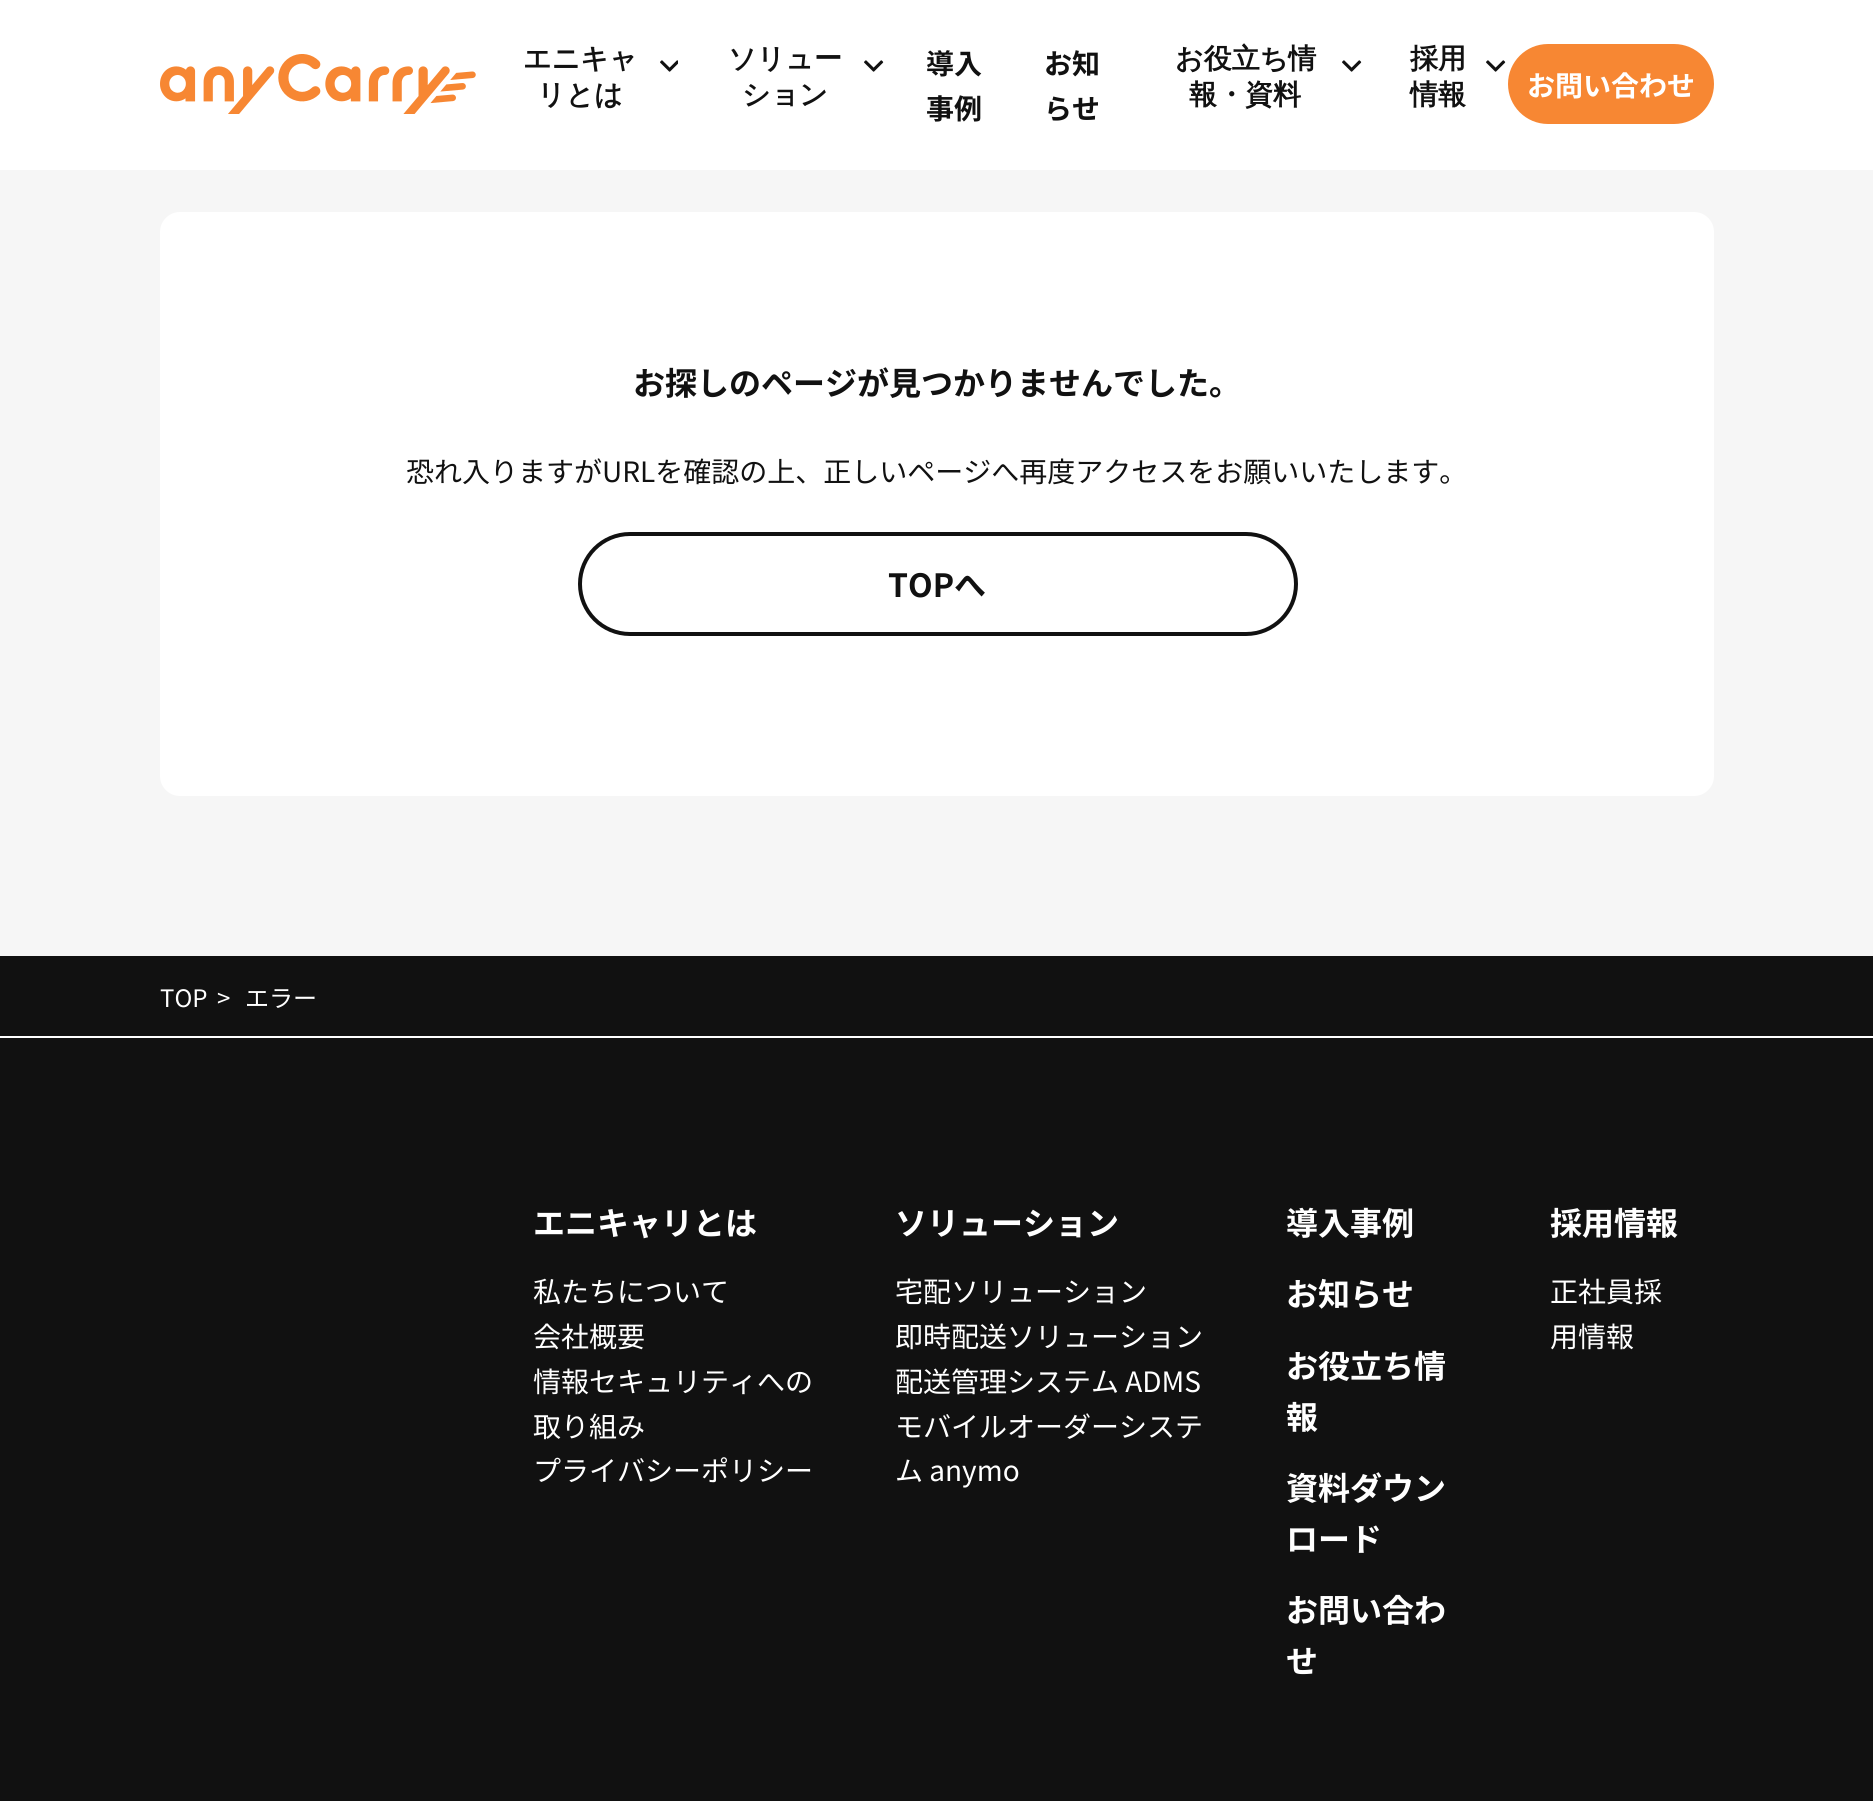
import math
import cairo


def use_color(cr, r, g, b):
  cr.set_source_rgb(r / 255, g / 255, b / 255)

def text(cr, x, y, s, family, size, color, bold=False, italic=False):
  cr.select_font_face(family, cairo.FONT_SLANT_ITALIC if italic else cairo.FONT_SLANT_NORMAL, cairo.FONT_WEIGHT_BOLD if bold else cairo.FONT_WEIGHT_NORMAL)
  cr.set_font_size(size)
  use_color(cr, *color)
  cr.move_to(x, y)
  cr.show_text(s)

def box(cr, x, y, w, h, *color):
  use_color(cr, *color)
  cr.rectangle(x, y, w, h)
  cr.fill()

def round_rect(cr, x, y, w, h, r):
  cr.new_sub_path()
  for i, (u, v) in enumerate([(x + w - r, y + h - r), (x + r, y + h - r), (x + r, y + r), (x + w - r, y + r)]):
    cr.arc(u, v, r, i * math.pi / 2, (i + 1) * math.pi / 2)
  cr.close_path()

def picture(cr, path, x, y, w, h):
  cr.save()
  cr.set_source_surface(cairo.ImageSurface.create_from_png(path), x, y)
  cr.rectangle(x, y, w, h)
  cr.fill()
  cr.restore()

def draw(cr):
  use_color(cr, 246, 246, 246)
  cr.paint()
  box(cr, 0, 0, 1873, 170, 255, 255, 255)
  picture(cr, "img_01.png", 160, 54, 316, 60)
  picture(cr, "img_02.png", 660, 60, 18, 12)
  picture(cr, "img_03.png", 864, 60, 20, 12)
  picture(cr, "img_03.png", 1342, 60, 20, 12)
  picture(cr, "img_03.png", 1486, 60, 20, 12)
  use_color(cr, 247, 135, 51)
  round_rect(cr, 1510, 46, 202, 76, 38)
  cr.fill_preserve()
  cr.set_line_width(4)
  cr.stroke()
  use_color(cr, 255, 255, 255)
  round_rect(cr, 160, 212, 1554, 584, 20)
  cr.fill()
  round_rect(cr, 580, 534, 716, 100, 50)
  use_color(cr, 17, 17, 17)
  cr.stroke()
  box(cr, 0, 956, 1873, 80, 17, 17, 17)
  box(cr, 0, 1036, 1873, 2, 255, 255, 255)
  box(cr, 0, 1038, 1873, 763, 17, 17, 17)
  text(cr, 523, 68, "エニキャ", "WenQuanYi Zen Hei", 28, (17, 17, 17), bold=True)
  text(cr, 537, 104, "リとは", "WenQuanYi Zen Hei", 28, (17, 17, 17), bold=True)
  text(cr, 728, 68, "ソリュー", "WenQuanYi Zen Hei", 28, (17, 17, 17), bold=True)
  text(cr, 742, 104, "ション", "WenQuanYi Zen Hei", 28, (17, 17, 17), bold=True)
  text(cr, 926, 74, "導入", "Noto Sans JP", 28, (17, 17, 17), bold=True)
  text(cr, 926, 119, "事例", "Noto Sans JP", 28, (17, 17, 17), bold=True)
  text(cr, 1044, 74, "お知", "Noto Sans JP", 28, (17, 17, 17), bold=True)
  text(cr, 1044, 119, "らせ", "Noto Sans JP", 28, (17, 17, 17), bold=True)
  text(cr, 1175, 68, "お役立ち情", "WenQuanYi Zen Hei", 28, (17, 17, 17), bold=True)
  text(cr, 1189, 104, "報・資料", "WenQuanYi Zen Hei", 28, (17, 17, 17), bold=True)
  text(cr, 1410, 68, "採用", "WenQuanYi Zen Hei", 28, (17, 17, 17), bold=True)
  text(cr, 1410, 104, "情報", "WenQuanYi Zen Hei", 28, (17, 17, 17), bold=True)
  text(cr, 1527, 96, "お問い合わせ", "Noto Sans JP", 28, (255, 255, 255), bold=True)
  text(cr, 633, 395, "お探しのページが見つかりませんでした。", "Noto Sans JP", 32, (17, 17, 17), bold=True)
  text(cr, 406, 482, "恐れ入りますがURLを確認の上、正しいページへ再度アクセスをお願いいたします。", "Noto Sans JP", 28, (17, 17, 17))
  text(cr, 888, 597, "TOPへ", "Noto Sans JP", 32, (17, 17, 17), bold=True)
  text(cr, 160, 1007, "TOP", "Noto Sans JP", 24, (255, 255, 255))
  text(cr, 217, 1007, ">", "Noto Sans JP", 24, (255, 255, 255))
  text(cr, 245, 1007, "エラー", "Noto Sans JP", 24, (255, 255, 255))
  text(cr, 533, 1235, "エニキャリとは", "Noto Sans JP", 32, (255, 255, 255), bold=True)
  text(cr, 533, 1302, "私たちについて", "Noto Sans JP", 28, (255, 255, 255))
  text(cr, 533, 1347, "会社概要", "Noto Sans JP", 28, (255, 255, 255))
  text(cr, 533, 1392, "情報セキュリティへの", "Noto Sans JP", 28, (255, 255, 255))
  text(cr, 533, 1437, "取り組み", "Noto Sans JP", 28, (255, 255, 255))
  text(cr, 533, 1481, "プライバシーポリシー", "Noto Sans JP", 28, (255, 255, 255))
  text(cr, 895, 1235, "ソリューション", "Noto Sans JP", 32, (255, 255, 255), bold=True)
  text(cr, 895, 1302, "宅配ソリューション", "Noto Sans JP", 28, (255, 255, 255))
  text(cr, 895, 1347, "即時配送ソリューション", "Noto Sans JP", 28, (255, 255, 255))
  text(cr, 895, 1392, "配送管理システム ADMS", "Noto Sans JP", 28, (255, 255, 255))
  text(cr, 895, 1437, "モバイルオーダーシステ", "Noto Sans JP", 28, (255, 255, 255))
  text(cr, 895, 1481, "ム anymo", "Noto Sans JP", 28, (255, 255, 255))
  text(cr, 1286, 1235, "導入事例", "Noto Sans JP", 32, (255, 255, 255), bold=True)
  text(cr, 1286, 1306, "お知らせ", "Noto Sans JP", 32, (255, 255, 255), bold=True)
  text(cr, 1286, 1378, "お役立ち情", "Noto Sans JP", 32, (255, 255, 255), bold=True)
  text(cr, 1286, 1429, "報", "Noto Sans JP", 32, (255, 255, 255), bold=True)
  text(cr, 1286, 1500, "資料ダウン", "Noto Sans JP", 32, (255, 255, 255), bold=True)
  text(cr, 1286, 1551, "ロード", "Noto Sans JP", 32, (255, 255, 255), bold=True)
  text(cr, 1286, 1622, "お問い合わ", "Noto Sans JP", 32, (255, 255, 255), bold=True)
  text(cr, 1286, 1673, "せ", "Noto Sans JP", 32, (255, 255, 255), bold=True)
  text(cr, 1550, 1235, "採用情報", "Noto Sans JP", 32, (255, 255, 255), bold=True)
  text(cr, 1550, 1302, "正社員採", "Noto Sans JP", 28, (255, 255, 255))
  text(cr, 1550, 1347, "用情報", "Noto Sans JP", 28, (255, 255, 255))


surface = cairo.ImageSurface(cairo.FORMAT_RGB24, 1873, 1801)
cr = cairo.Context(surface)
options = cairo.FontOptions()
options.set_hint_metrics(cairo.HINT_METRICS_OFF)
options.set_hint_style(cairo.HINT_STYLE_NONE)
cr.set_font_options(options)
cr.set_miter_limit(4)
draw(cr)
surface.write_to_png("out.png")
